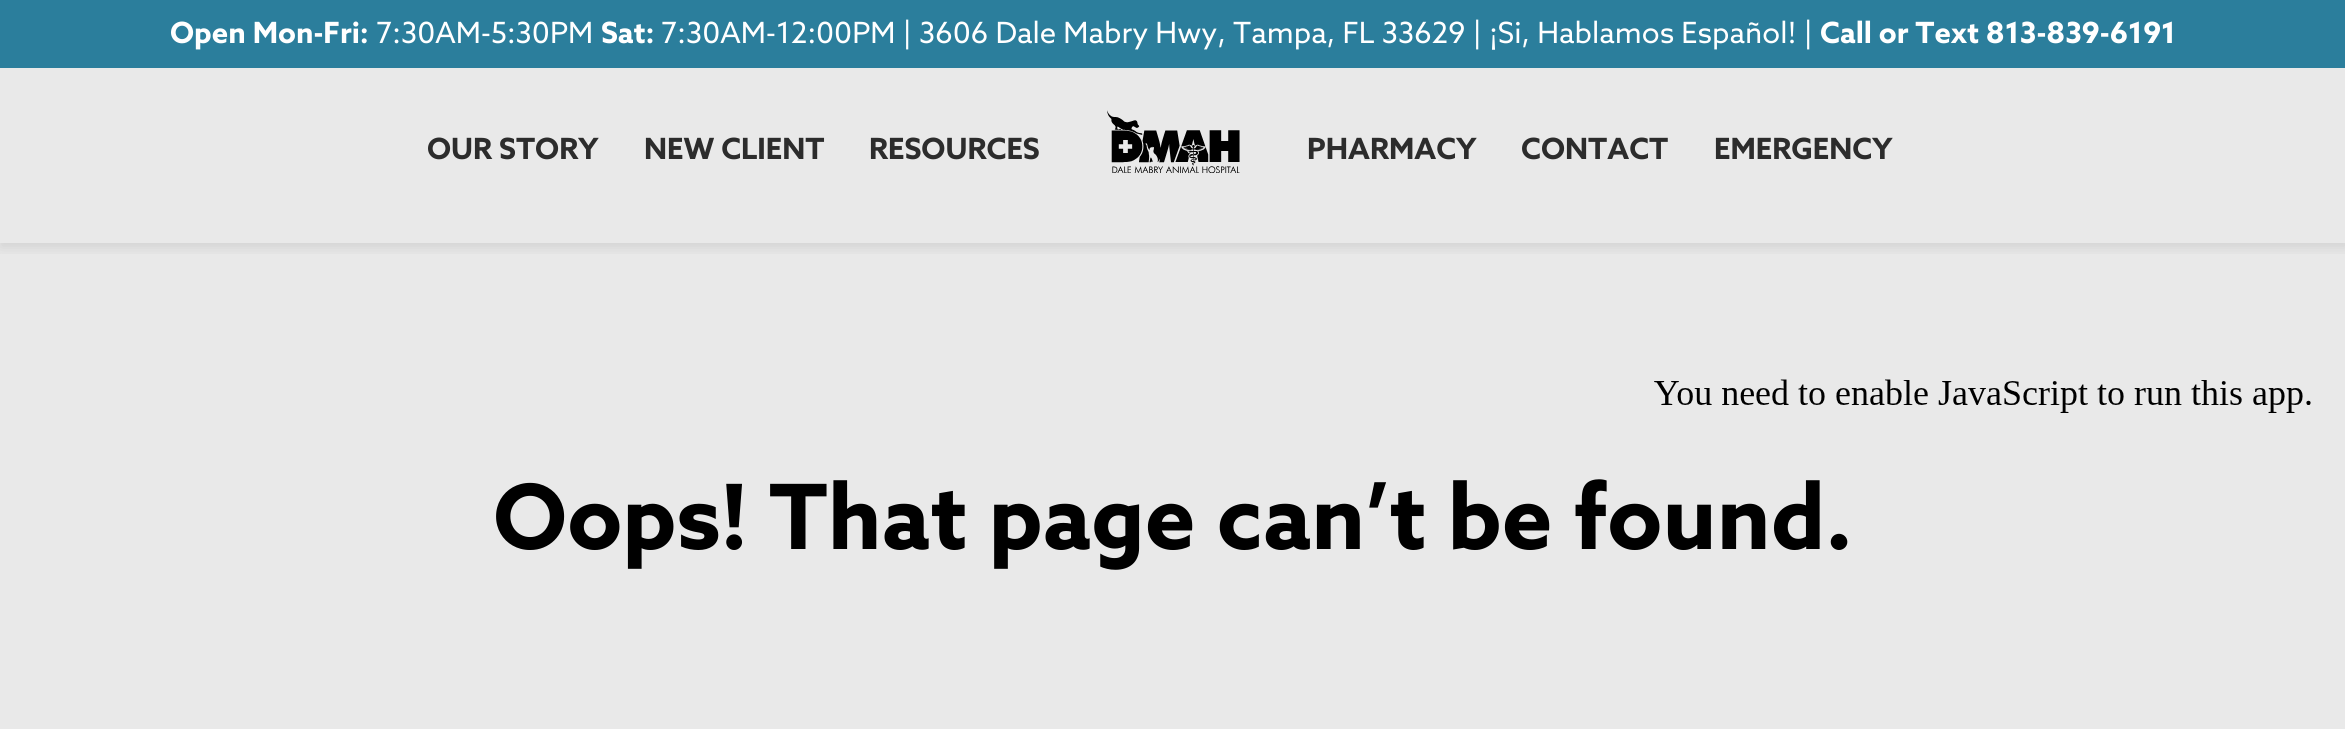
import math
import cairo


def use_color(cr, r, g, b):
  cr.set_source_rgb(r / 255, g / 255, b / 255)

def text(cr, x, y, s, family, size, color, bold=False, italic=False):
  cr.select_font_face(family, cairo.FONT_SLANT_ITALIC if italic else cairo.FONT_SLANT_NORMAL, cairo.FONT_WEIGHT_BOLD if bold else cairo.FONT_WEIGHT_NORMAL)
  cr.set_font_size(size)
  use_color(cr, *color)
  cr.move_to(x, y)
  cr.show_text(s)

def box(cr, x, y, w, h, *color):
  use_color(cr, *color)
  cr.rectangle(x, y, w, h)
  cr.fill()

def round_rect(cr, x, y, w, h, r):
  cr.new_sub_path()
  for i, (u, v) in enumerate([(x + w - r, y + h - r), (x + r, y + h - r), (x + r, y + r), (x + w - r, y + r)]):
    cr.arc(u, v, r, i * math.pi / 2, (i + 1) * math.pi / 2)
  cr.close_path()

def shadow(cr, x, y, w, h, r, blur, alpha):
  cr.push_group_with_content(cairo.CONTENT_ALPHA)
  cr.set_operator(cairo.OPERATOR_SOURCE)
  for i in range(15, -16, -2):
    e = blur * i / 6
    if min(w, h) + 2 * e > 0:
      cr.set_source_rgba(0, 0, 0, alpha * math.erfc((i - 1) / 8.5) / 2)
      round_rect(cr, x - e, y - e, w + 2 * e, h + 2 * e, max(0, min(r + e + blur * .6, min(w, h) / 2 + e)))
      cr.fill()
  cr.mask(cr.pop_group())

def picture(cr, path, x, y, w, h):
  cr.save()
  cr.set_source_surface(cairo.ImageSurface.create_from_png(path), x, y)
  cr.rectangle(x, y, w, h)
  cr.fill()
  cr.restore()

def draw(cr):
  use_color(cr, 233, 233, 233)
  cr.paint()
  cr.save()
  cr.rectangle(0, 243, 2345, 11)
  cr.clip()
  use_color(cr, 0, 0, 0)
  shadow(cr, 0, 5, 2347, 243, 0, 7, 0.1)
  cr.restore()
  box(cr, 0, 0, 2345, 68, 43, 126, 156)
  picture(cr, "img_01.png", 1107, 110, 133, 63)
  picture(cr, "img_02.png", 1654, 379, 657, 34)
  text(cr, 170, 43, "Open Mon-Fri:", "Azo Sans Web", 29.25, (255, 255, 255), bold=True)
  text(cr, 376, 43, "7:30AM-5:30PM", "Azo Sans Web", 29.25, (255, 255, 255))
  text(cr, 601, 43, "Sat:", "Azo Sans Web", 29.25, (255, 255, 255), bold=True)
  text(cr, 661, 43, "7:30AM-12:00PM | 3606 Dale Mabry Hwy, Tampa, FL 33629 | ¡Si, Hablamos Español! |", "Azo Sans Web", 29.25, (255, 255, 255))
  text(cr, 1820, 43, "Call or Text 813-839-6191", "Azo Sans Web", 29.25, (255, 255, 255), bold=True)
  text(cr, 427, 159, "OUR STORY", "Azo Sans Web", 29.25, (44, 44, 44), bold=True)
  text(cr, 644, 159, "NEW CLIENT", "Azo Sans Web", 29.25, (44, 44, 44), bold=True)
  text(cr, 869, 159, "RESOURCES", "Azo Sans Web", 29.25, (44, 44, 44), bold=True)
  text(cr, 1307, 159, "PHARMACY", "Azo Sans Web", 29.25, (44, 44, 44), bold=True)
  text(cr, 1521, 159, "CONTACT", "Azo Sans Web", 29.25, (44, 44, 44), bold=True)
  text(cr, 1714, 159, "EMERGENCY", "Azo Sans Web", 29.25, (44, 44, 44), bold=True)
  text(cr, 493, 549, "Oops! That page can’t be found.", "Azo Sans Web", 90, (0, 0, 0), bold=True)


surface = cairo.ImageSurface(cairo.FORMAT_RGB24, 2345, 729)
cr = cairo.Context(surface)
options = cairo.FontOptions()
options.set_hint_metrics(cairo.HINT_METRICS_OFF)
options.set_hint_style(cairo.HINT_STYLE_NONE)
cr.set_font_options(options)
cr.set_miter_limit(4)
draw(cr)
surface.write_to_png("out.png")
